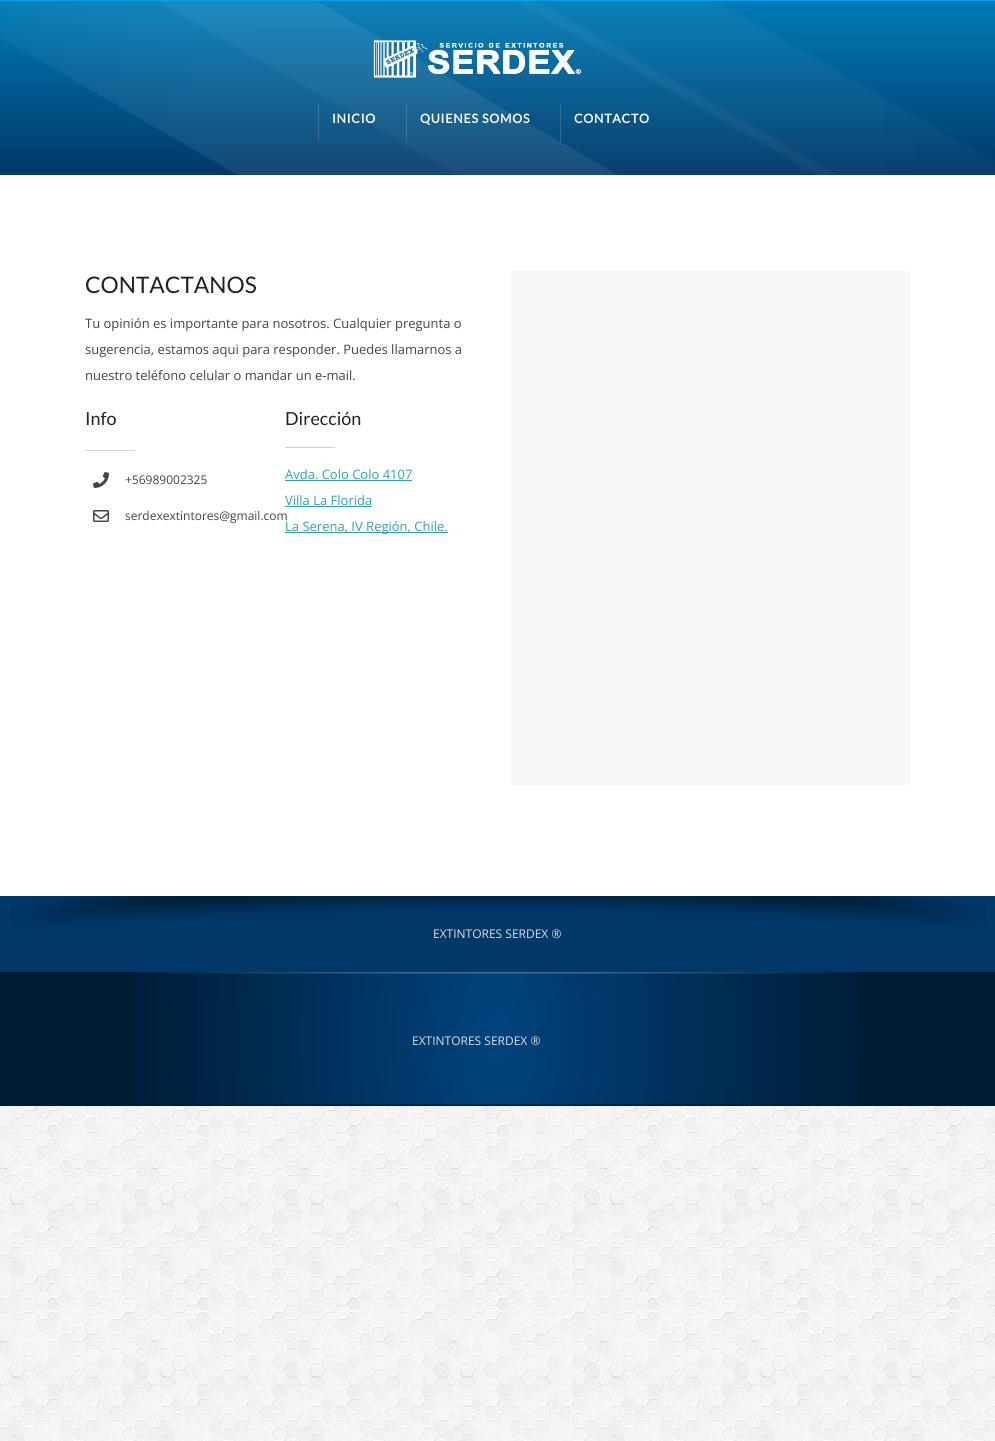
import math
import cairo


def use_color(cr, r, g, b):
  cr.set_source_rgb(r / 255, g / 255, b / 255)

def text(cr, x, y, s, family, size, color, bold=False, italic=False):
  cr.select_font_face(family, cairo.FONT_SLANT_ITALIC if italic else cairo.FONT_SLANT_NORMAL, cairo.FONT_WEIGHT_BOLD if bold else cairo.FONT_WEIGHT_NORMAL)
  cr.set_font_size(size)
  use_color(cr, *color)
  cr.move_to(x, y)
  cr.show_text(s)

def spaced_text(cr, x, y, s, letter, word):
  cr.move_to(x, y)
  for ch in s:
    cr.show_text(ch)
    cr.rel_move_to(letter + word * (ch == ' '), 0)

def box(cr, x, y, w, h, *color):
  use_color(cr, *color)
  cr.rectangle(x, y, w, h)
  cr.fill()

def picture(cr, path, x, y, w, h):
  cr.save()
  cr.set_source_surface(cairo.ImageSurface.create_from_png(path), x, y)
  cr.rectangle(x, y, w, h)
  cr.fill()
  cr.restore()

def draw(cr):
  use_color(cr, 255, 255, 255)
  cr.paint()
  picture(cr, "img_01.png", 0, 1106, 995, 335)
  gradient = cairo.LinearGradient(498, 1, 498, 175)
  gradient.add_color_stop_rgba(0, 0, 0.486, 0.718, 1)
  gradient.add_color_stop_rgba(1, 0, 0.22, 0.412, 1)
  cr.set_source(gradient)
  cr.rectangle(0, 1, 995, 174)
  cr.fill()
  box(cr, 0, 0, 995, 1, 0, 162, 237)
  picture(cr, "img_02.png", 0, 1, 995, 174)
  picture(cr, "img_03.png", 373, 40, 209, 38)
  cr.set_source_rgba(1, 1, 1, 0.15)
  cr.rectangle(318, 104, 1, 38)
  cr.fill()
  cr.rectangle(406, 104, 1, 38)
  cr.fill()
  cr.rectangle(560, 104, 1, 38)
  cr.fill()
  box(cr, 85, 450, 50, 1, 209, 209, 209)
  picture(cr, "img_04.png", 93, 472, 16, 16)
  picture(cr, "img_05.png", 93, 510, 16, 12)
  box(cr, 285, 447, 50, 1, 209, 209, 209)
  box(cr, 285, 480, 127, 1, 48, 163, 175)
  box(cr, 285, 506, 87, 1, 48, 163, 175)
  box(cr, 285, 532, 163, 1, 48, 163, 175)
  box(cr, 511, 271, 399, 514, 247, 247, 247)
  box(cr, 0, 896, 995, 76, 0, 56, 105)
  picture(cr, "img_06.png", 10, 896, 976, 30)
  box(cr, 0, 972, 995, 134, 0, 28, 52)
  picture(cr, "img_07.png", 133, 972, 725, 133)
  cr.select_font_face("Lato", cairo.FONT_SLANT_NORMAL, cairo.FONT_WEIGHT_BOLD)
  cr.set_font_size(12.5)
  use_color(cr, 255, 255, 255)
  spaced_text(cr, 332, 123, "INICIO", 0.75, 0)
  spaced_text(cr, 420, 123, "QUIENES SOMOS", 0.75, 0)
  spaced_text(cr, 574, 123, "CONTACTO", 0.75, 0)
  text(cr, 85, 293, "CONTACTANOS", "Lato", 22.75, (34, 34, 34))
  text(cr, 85, 328, "Tu opinión es importante para nosotros. Cualquier pregunta o", "Open Sans", 13, (68, 68, 68))
  text(cr, 85, 354, "sugerencia, estamos aqui para responder. Puedes llamarnos a", "Open Sans", 13, (68, 68, 68))
  text(cr, 85, 380, "nuestro teléfono celular o mandar un e-mail.", "Open Sans", 13, (68, 68, 68))
  text(cr, 85, 425, "Info", "Lato", 18, (34, 34, 34))
  text(cr, 125, 484, "+56989002325", "Open Sans", 12, (68, 68, 68))
  text(cr, 125, 520, "serdexextintores@gmail.com", "Open Sans", 12, (68, 68, 68))
  text(cr, 285, 425, "Dirección", "Lato", 18, (34, 34, 34))
  text(cr, 285, 479, "Avda. Colo Colo 4107", "Open Sans", 13, (48, 163, 175))
  text(cr, 285, 505, "Villa La Florida", "Open Sans", 13, (48, 163, 175))
  text(cr, 285, 531, "La Serena, IV Región, Chile.", "Open Sans", 13, (48, 163, 175))
  text(cr, 433, 938, "EXTINTORES SERDEX ®", "Open Sans", 12, (221, 221, 221))
  text(cr, 412, 1045, "EXTINTORES SERDEX ®", "Open Sans", 12, (221, 221, 221))


surface = cairo.ImageSurface(cairo.FORMAT_RGB24, 995, 1441)
cr = cairo.Context(surface)
options = cairo.FontOptions()
options.set_hint_metrics(cairo.HINT_METRICS_OFF)
options.set_hint_style(cairo.HINT_STYLE_NONE)
cr.set_font_options(options)
cr.set_miter_limit(4)
draw(cr)
surface.write_to_png("out.png")
